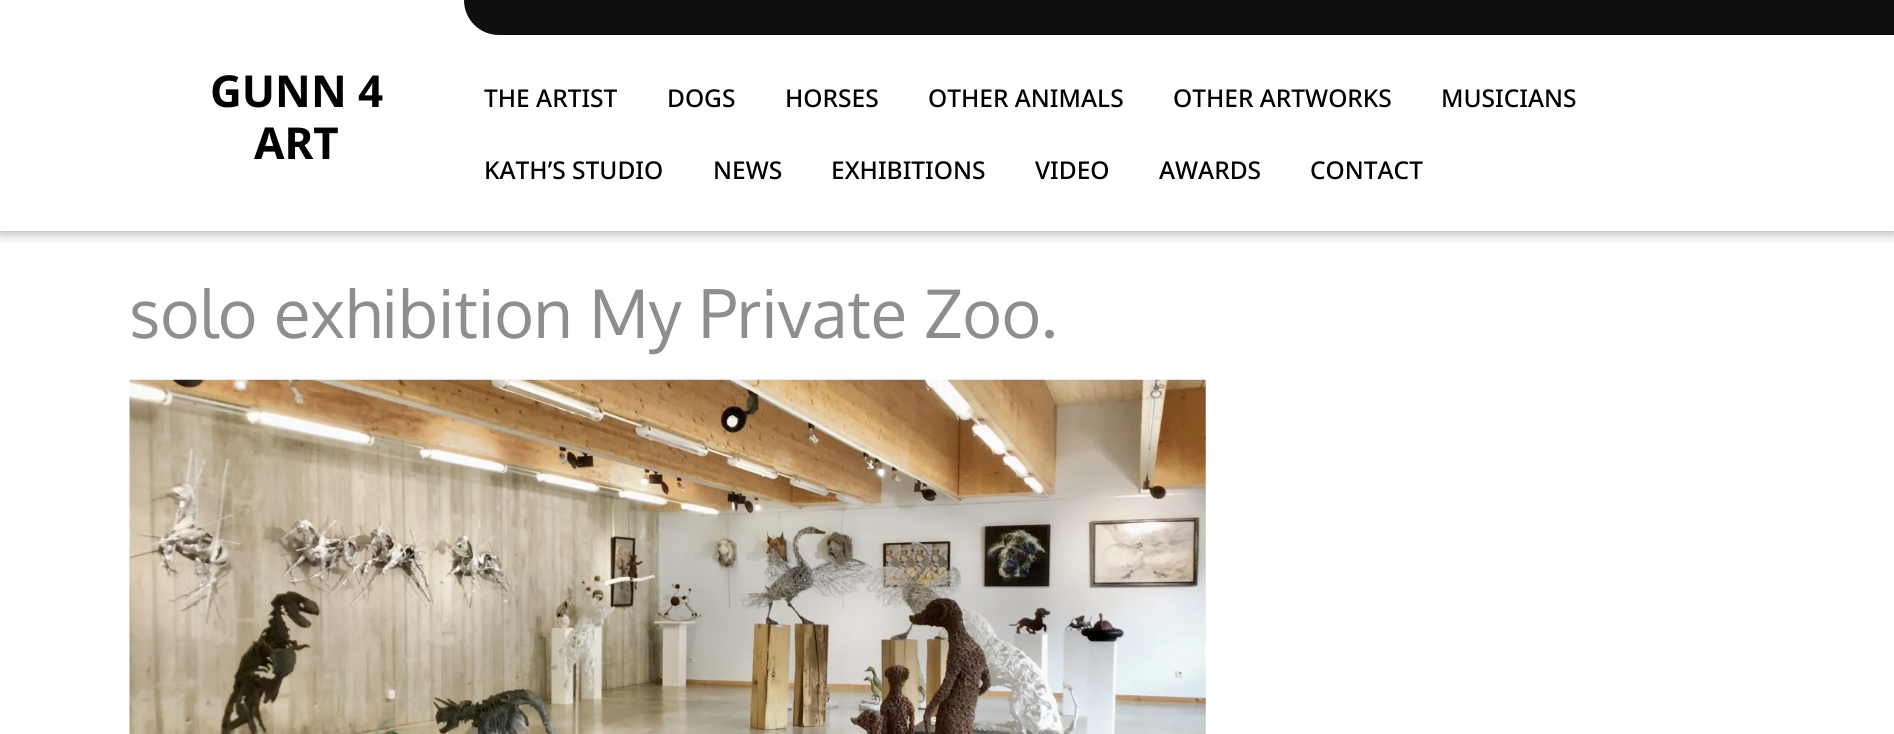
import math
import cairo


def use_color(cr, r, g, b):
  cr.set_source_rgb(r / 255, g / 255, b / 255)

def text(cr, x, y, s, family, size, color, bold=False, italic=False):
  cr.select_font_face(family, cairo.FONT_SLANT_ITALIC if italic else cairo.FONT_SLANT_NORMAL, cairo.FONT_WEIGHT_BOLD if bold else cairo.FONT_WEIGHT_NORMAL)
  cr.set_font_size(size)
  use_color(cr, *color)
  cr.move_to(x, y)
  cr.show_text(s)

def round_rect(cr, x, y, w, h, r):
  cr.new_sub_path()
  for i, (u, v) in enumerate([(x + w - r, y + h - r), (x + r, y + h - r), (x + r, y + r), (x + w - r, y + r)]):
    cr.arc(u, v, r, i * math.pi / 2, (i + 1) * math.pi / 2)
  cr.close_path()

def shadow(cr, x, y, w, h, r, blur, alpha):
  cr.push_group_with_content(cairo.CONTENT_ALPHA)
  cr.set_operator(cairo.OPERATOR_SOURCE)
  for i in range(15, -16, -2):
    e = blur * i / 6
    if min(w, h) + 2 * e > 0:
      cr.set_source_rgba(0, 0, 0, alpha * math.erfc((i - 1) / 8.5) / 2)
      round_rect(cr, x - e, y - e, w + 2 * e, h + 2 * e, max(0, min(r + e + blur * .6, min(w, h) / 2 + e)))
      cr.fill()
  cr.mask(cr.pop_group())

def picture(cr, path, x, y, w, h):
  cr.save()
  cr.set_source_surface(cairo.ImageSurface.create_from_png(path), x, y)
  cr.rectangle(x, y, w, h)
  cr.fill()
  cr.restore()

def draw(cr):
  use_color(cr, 255, 255, 255)
  cr.paint()
  cr.save()
  cr.rectangle(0, 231, 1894, 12)
  cr.clip()
  use_color(cr, 0, 0, 0)
  shadow(cr, 0, 0, 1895, 231, 0, 7.5, 0.42)
  cr.restore()
  use_color(cr, 15, 15, 15)
  cr.new_path()
  cr.move_to(464, 0)
  cr.line_to(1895, 0)
  cr.line_to(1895, 35)
  cr.line_to(499, 35)
  cr.curve_to(479.5, 35, 464, 19.5, 464, 0)
  cr.close_path()
  cr.fill()
  picture(cr, "img_01.png", 129, 379, 1077, 355)
  text(cr, 210, 107, "GUNN 4", "Noto Sans", 44, (0, 0, 0), bold=True)
  text(cr, 254, 159, "ART", "Noto Sans", 44, (0, 0, 0), bold=True)
  text(cr, 484, 107, "THE ARTIST", "Noto Sans Medium", 24.5, (0, 0, 0))
  text(cr, 667, 107, "DOGS", "Noto Sans Medium", 24.5, (0, 0, 0))
  text(cr, 785, 107, "HORSES", "Noto Sans Medium", 24.5, (0, 0, 0))
  text(cr, 928, 107, "OTHER ANIMALS", "Noto Sans Medium", 24.5, (0, 0, 0))
  text(cr, 1173, 107, "OTHER ARTWORKS", "Noto Sans Medium", 24.5, (0, 0, 0))
  text(cr, 1441, 107, "MUSICIANS", "Noto Sans Medium", 24.5, (0, 0, 0))
  text(cr, 484, 179, "KATH’S STUDIO", "Noto Sans Medium", 24.5, (0, 0, 0))
  text(cr, 713, 179, "NEWS", "Noto Sans Medium", 24.5, (0, 0, 0))
  text(cr, 831, 179, "EXHIBITIONS", "Noto Sans Medium", 24.5, (0, 0, 0))
  text(cr, 1035, 179, "VIDEO", "Noto Sans Medium", 24.5, (0, 0, 0))
  text(cr, 1159, 179, "AWARDS", "Noto Sans Medium", 24.5, (0, 0, 0))
  text(cr, 1310, 179, "CONTACT", "Noto Sans Medium", 24.5, (0, 0, 0))
  text(cr, 129, 338, "solo exhibition My Private Zoo.", "Oxygen", 67, (142, 142, 142))


surface = cairo.ImageSurface(cairo.FORMAT_RGB24, 1894, 734)
cr = cairo.Context(surface)
options = cairo.FontOptions()
options.set_hint_metrics(cairo.HINT_METRICS_OFF)
options.set_hint_style(cairo.HINT_STYLE_NONE)
cr.set_font_options(options)
cr.set_miter_limit(4)
draw(cr)
surface.write_to_png("out.png")
